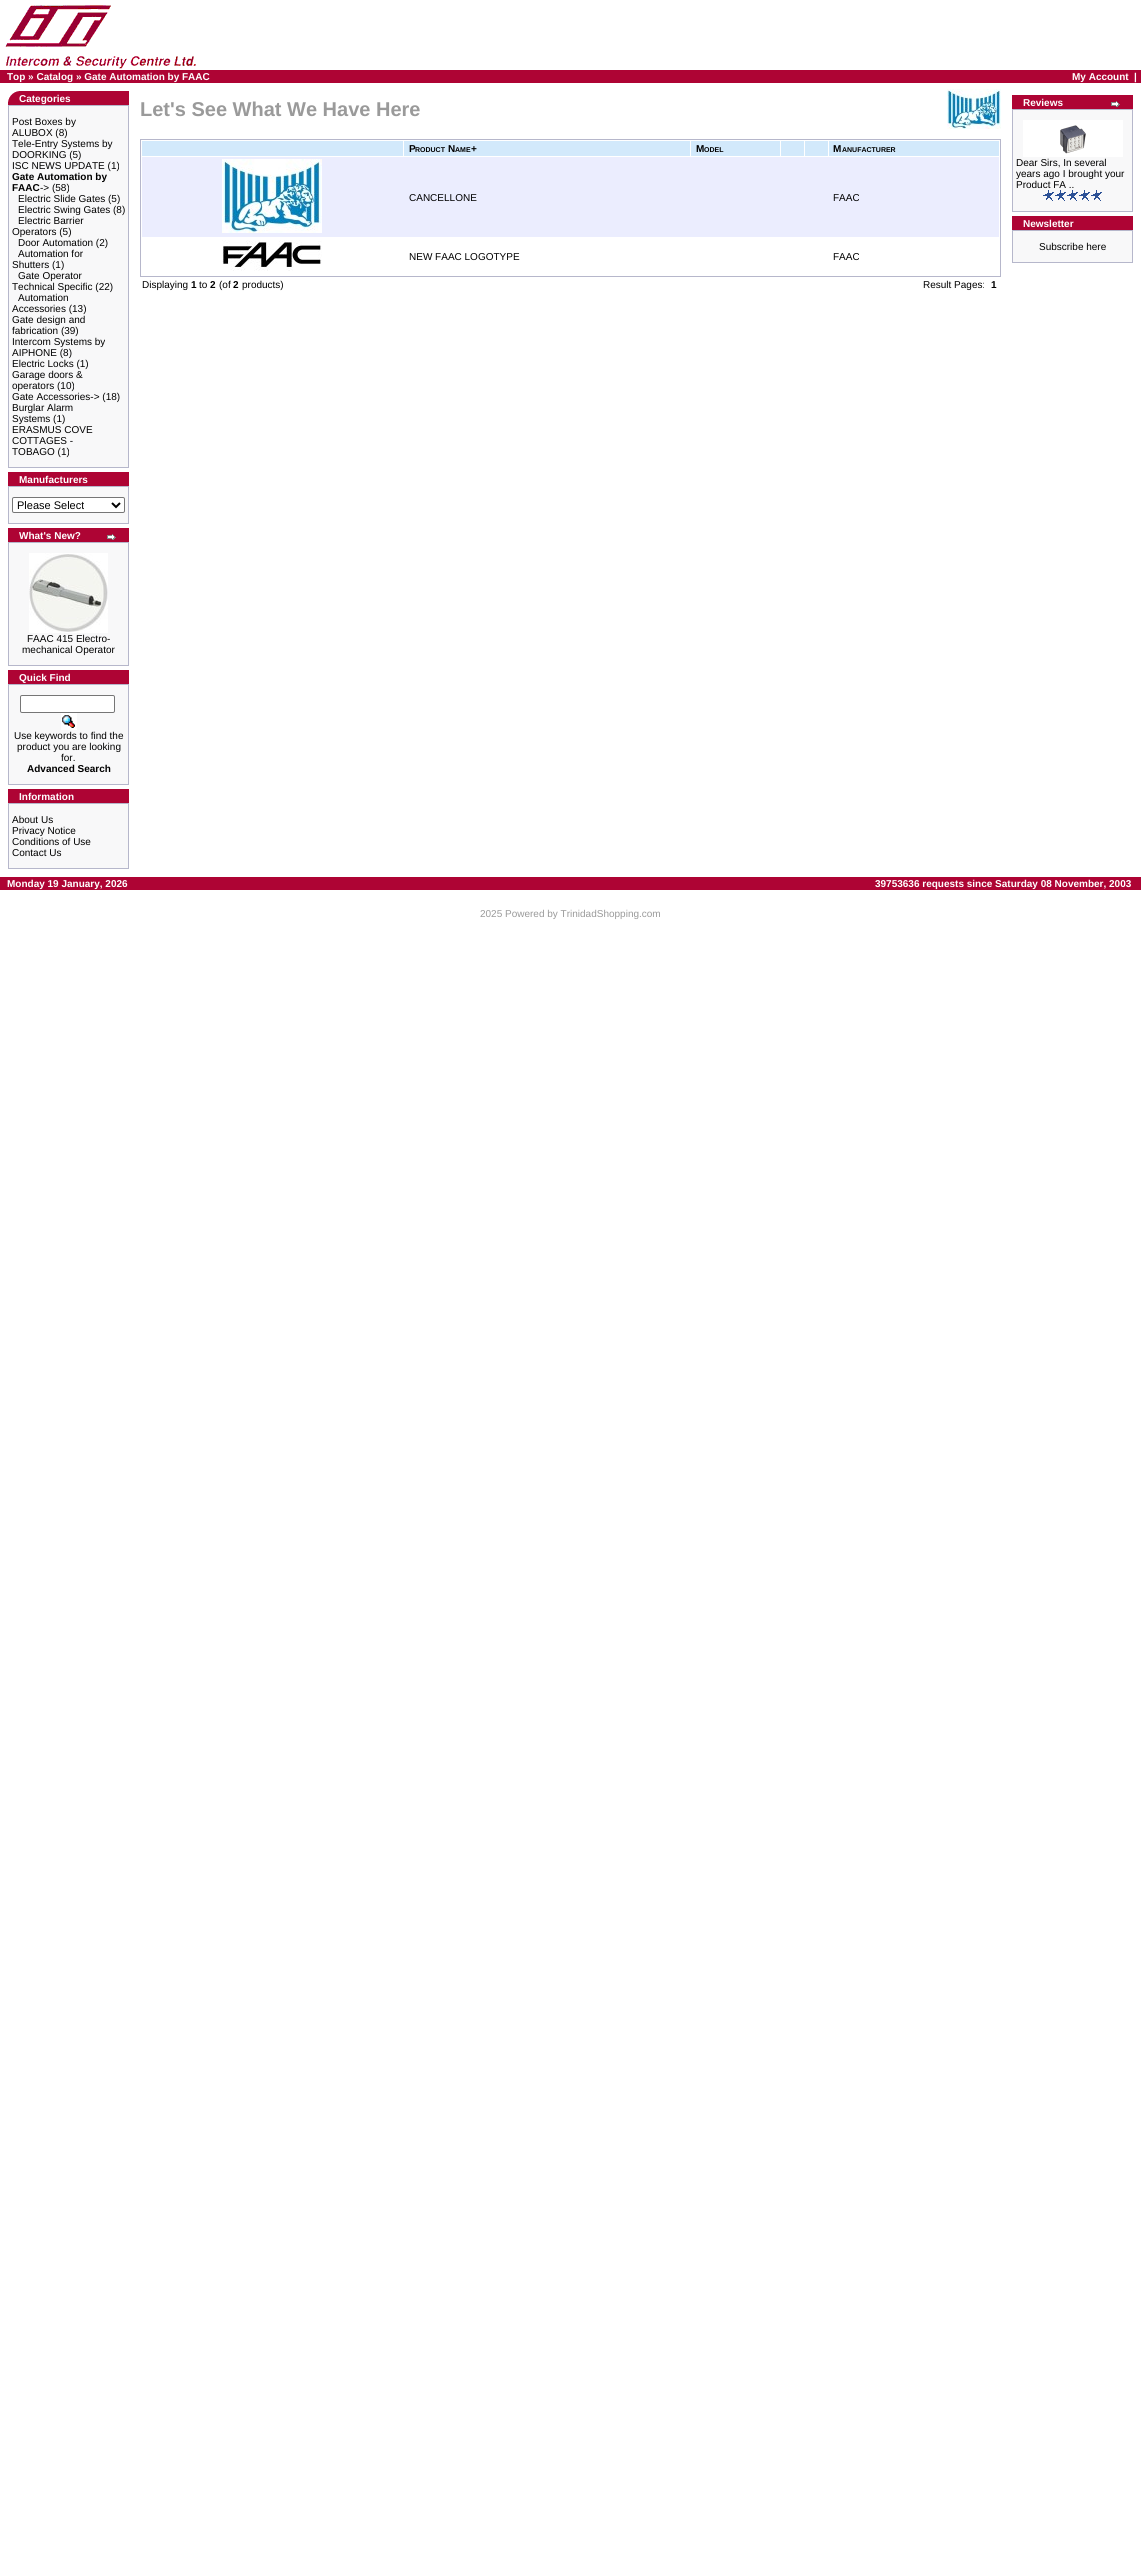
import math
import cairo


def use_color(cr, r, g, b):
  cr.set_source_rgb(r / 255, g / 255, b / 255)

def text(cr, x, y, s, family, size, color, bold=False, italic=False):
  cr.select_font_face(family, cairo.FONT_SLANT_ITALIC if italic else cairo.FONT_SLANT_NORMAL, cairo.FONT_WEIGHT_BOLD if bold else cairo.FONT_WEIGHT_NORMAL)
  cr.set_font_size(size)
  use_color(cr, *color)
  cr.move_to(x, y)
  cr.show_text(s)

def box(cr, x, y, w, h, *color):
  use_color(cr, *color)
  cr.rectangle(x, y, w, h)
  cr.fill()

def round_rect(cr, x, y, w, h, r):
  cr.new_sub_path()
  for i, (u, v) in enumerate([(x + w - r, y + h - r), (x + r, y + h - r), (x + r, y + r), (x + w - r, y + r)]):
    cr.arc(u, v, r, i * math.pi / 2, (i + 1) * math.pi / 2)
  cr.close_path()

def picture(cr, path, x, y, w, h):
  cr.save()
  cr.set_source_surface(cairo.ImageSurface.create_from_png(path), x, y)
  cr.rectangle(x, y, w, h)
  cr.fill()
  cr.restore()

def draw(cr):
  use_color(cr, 255, 255, 255)
  cr.paint()
  picture(cr, "img_01.png", 5, 5, 191, 64)
  box(cr, 0, 70, 1141, 13, 174, 4, 52)
  box(cr, 8, 102, 11, 3, 174, 4, 52)
  picture(cr, "img_02.png", 8, 91, 11, 11)
  box(cr, 19, 91, 110, 14, 174, 4, 52)
  box(cr, 8, 105, 121, 363, 182, 183, 203)
  box(cr, 9, 106, 119, 361, 248, 248, 249)
  box(cr, 8, 472, 121, 14, 174, 4, 52)
  box(cr, 8, 486, 121, 38, 182, 183, 203)
  box(cr, 9, 487, 119, 36, 248, 248, 249)
  use_color(cr, 255, 255, 255)
  round_rect(cr, 12.5, 497.5, 112, 15, 1.5)
  cr.fill_preserve()
  use_color(cr, 118, 118, 118)
  cr.set_line_width(1)
  cr.stroke()
  cr.new_path()
  cr.move_to(112, 503)
  cr.line_to(116, 507)
  cr.line_to(120, 503)
  use_color(cr, 0, 0, 0)
  cr.set_line_width(2)
  cr.stroke()
  box(cr, 8, 528, 121, 14, 174, 4, 52)
  picture(cr, "img_03.png", 107, 534, 9, 6)
  box(cr, 8, 542, 121, 124, 182, 183, 203)
  box(cr, 9, 543, 119, 122, 248, 248, 249)
  picture(cr, "img_04.png", 29, 553, 79, 80)
  box(cr, 8, 670, 121, 14, 174, 4, 52)
  box(cr, 8, 684, 121, 101, 182, 183, 203)
  box(cr, 9, 685, 119, 99, 248, 248, 249)
  use_color(cr, 255, 255, 255)
  round_rect(cr, 20.5, 695.5, 94, 17, 1.5)
  cr.fill_preserve()
  use_color(cr, 118, 118, 118)
  cr.set_line_width(1)
  cr.stroke()
  picture(cr, "img_05.png", 61, 713, 16, 17)
  box(cr, 8, 789, 121, 14, 174, 4, 52)
  box(cr, 8, 803, 121, 66, 182, 183, 203)
  box(cr, 9, 804, 119, 64, 248, 248, 249)
  picture(cr, "img_06.png", 947, 89, 54, 40)
  cr.rectangle(140.5, 139.5, 860, 137)
  use_color(cr, 182, 183, 203)
  cr.stroke()
  box(cr, 142, 141, 261, 15, 210, 233, 251)
  box(cr, 404, 141, 286, 15, 210, 233, 251)
  box(cr, 691, 141, 89, 15, 210, 233, 251)
  box(cr, 781, 141, 23, 15, 210, 233, 251)
  box(cr, 805, 141, 23, 15, 210, 233, 251)
  box(cr, 829, 141, 170, 15, 210, 233, 251)
  box(cr, 142, 157, 857, 80, 235, 237, 254)
  picture(cr, "img_07.png", 222, 159, 100, 74)
  picture(cr, "img_08.png", 222, 240, 100, 31)
  box(cr, 1012, 95, 121, 14, 174, 4, 52)
  picture(cr, "img_03.png", 1111, 101, 9, 6)
  box(cr, 1012, 109, 121, 103, 182, 183, 203)
  box(cr, 1013, 110, 119, 101, 248, 248, 249)
  picture(cr, "img_09.png", 1023, 120, 100, 37)
  picture(cr, "img_10.png", 1043, 190, 59, 11)
  box(cr, 1012, 216, 121, 14, 174, 4, 52)
  box(cr, 1012, 230, 121, 33, 182, 183, 203)
  box(cr, 1013, 231, 119, 31, 248, 248, 249)
  box(cr, 0, 877, 1141, 13, 174, 4, 52)
  text(cr, 7, 80, "Top » Catalog » Gate Automation by FAAC", "Liberation Sans", 10, (255, 255, 255), bold=True)
  text(cr, 1072, 80, "My Account", "Liberation Sans", 10, (255, 255, 255), bold=True)
  text(cr, 1134, 80, "|", "Liberation Sans", 10, (255, 255, 255), bold=True)
  text(cr, 19, 102, "Categories", "Liberation Sans", 10, (255, 255, 255), bold=True)
  text(cr, 12, 125, "Post Boxes by", "Liberation Sans", 10, (0, 0, 0))
  text(cr, 12, 136, "ALUBOX (8)", "Liberation Sans", 10, (0, 0, 0))
  text(cr, 12, 147, "Tele-Entry Systems by", "Liberation Sans", 10, (0, 0, 0))
  text(cr, 12, 158, "DOORKING (5)", "Liberation Sans", 10, (0, 0, 0))
  text(cr, 12, 169, "ISC NEWS UPDATE (1)", "Liberation Sans", 10, (0, 0, 0))
  text(cr, 12, 180, "Gate Automation by", "Liberation Sans", 10, (0, 0, 0), bold=True)
  text(cr, 12, 191, "FAAC", "Liberation Sans", 10, (0, 0, 0), bold=True)
  text(cr, 40, 191, "-> (58)", "Liberation Sans", 10, (0, 0, 0))
  text(cr, 18, 202, "Electric Slide Gates (5)", "Liberation Sans", 10, (0, 0, 0))
  text(cr, 18, 213, "Electric Swing Gates (8)", "Liberation Sans", 10, (0, 0, 0))
  text(cr, 18, 224, "Electric Barrier", "Liberation Sans", 10, (0, 0, 0))
  text(cr, 12, 235, "Operators (5)", "Liberation Sans", 10, (0, 0, 0))
  text(cr, 18, 246, "Door Automation (2)", "Liberation Sans", 10, (0, 0, 0))
  text(cr, 18, 257, "Automation for", "Liberation Sans", 10, (0, 0, 0))
  text(cr, 12, 268, "Shutters (1)", "Liberation Sans", 10, (0, 0, 0))
  text(cr, 18, 279, "Gate Operator", "Liberation Sans", 10, (0, 0, 0))
  text(cr, 12, 290, "Technical Specific (22)", "Liberation Sans", 10, (0, 0, 0))
  text(cr, 18, 301, "Automation", "Liberation Sans", 10, (0, 0, 0))
  text(cr, 12, 312, "Accessories (13)", "Liberation Sans", 10, (0, 0, 0))
  text(cr, 12, 323, "Gate design and", "Liberation Sans", 10, (0, 0, 0))
  text(cr, 12, 334, "fabrication (39)", "Liberation Sans", 10, (0, 0, 0))
  text(cr, 12, 345, "Intercom Systems by", "Liberation Sans", 10, (0, 0, 0))
  text(cr, 12, 356, "AIPHONE (8)", "Liberation Sans", 10, (0, 0, 0))
  text(cr, 12, 367, "Electric Locks (1)", "Liberation Sans", 10, (0, 0, 0))
  text(cr, 12, 378, "Garage doors &", "Liberation Sans", 10, (0, 0, 0))
  text(cr, 12, 389, "operators (10)", "Liberation Sans", 10, (0, 0, 0))
  text(cr, 12, 400, "Gate Accessories-> (18)", "Liberation Sans", 10, (0, 0, 0))
  text(cr, 12, 411, "Burglar Alarm", "Liberation Sans", 10, (0, 0, 0))
  text(cr, 12, 422, "Systems (1)", "Liberation Sans", 10, (0, 0, 0))
  text(cr, 12, 433, "ERASMUS COVE", "Liberation Sans", 10, (0, 0, 0))
  text(cr, 12, 444, "COTTAGES -", "Liberation Sans", 10, (0, 0, 0))
  text(cr, 12, 455, "TOBAGO (1)", "Liberation Sans", 10, (0, 0, 0))
  text(cr, 19, 483, "Manufacturers", "Liberation Sans", 10, (255, 255, 255), bold=True)
  text(cr, 17, 509, "Please Select", "Liberation Sans", 11, (0, 0, 0))
  text(cr, 19, 539, "What's New?", "Liberation Sans", 10, (255, 255, 255), bold=True)
  text(cr, 27, 642, "FAAC 415 Electro-", "Liberation Sans", 10, (0, 0, 0))
  text(cr, 22, 653, "mechanical Operator", "Liberation Sans", 10, (0, 0, 0))
  text(cr, 19, 681, "Quick Find", "Liberation Sans", 10, (255, 255, 255), bold=True)
  text(cr, 14, 739, "Use keywords to find the", "Liberation Sans", 10, (0, 0, 0))
  text(cr, 17, 750, "product you are looking", "Liberation Sans", 10, (0, 0, 0))
  text(cr, 61, 761, "for.", "Liberation Sans", 10, (0, 0, 0))
  text(cr, 27, 772, "Advanced Search", "Liberation Sans", 10, (0, 0, 0), bold=True)
  text(cr, 19, 800, "Information", "Liberation Sans", 10, (255, 255, 255), bold=True)
  text(cr, 12, 823, "About Us", "Liberation Sans", 10, (0, 0, 0))
  text(cr, 12, 834, "Privacy Notice", "Liberation Sans", 10, (0, 0, 0))
  text(cr, 12, 845, "Conditions of Use", "Liberation Sans", 10, (0, 0, 0))
  text(cr, 12, 856, "Contact Us", "Liberation Sans", 10, (0, 0, 0))
  text(cr, 140, 116, "Let's See What We Have Here", "Liberation Sans", 20, (154, 154, 154), bold=True)
  text(cr, 409, 152, "P", "Liberation Sans", 10, (0, 0, 0), bold=True)
  text(cr, 415, 152, "RODUCT", "Liberation Sans", 7, (0, 0, 0), bold=True)
  text(cr, 448, 152, "N", "Liberation Sans", 10, (0, 0, 0), bold=True)
  text(cr, 455, 152, "AME", "Liberation Sans", 7, (0, 0, 0), bold=True)
  text(cr, 471, 152, "+", "Liberation Sans", 10, (0, 0, 0), bold=True)
  text(cr, 696, 152, "M", "Liberation Sans", 10, (0, 0, 0), bold=True)
  text(cr, 704, 152, "ODEL", "Liberation Sans", 7, (0, 0, 0), bold=True)
  text(cr, 833, 152, "M", "Liberation Sans", 10, (0, 0, 0), bold=True)
  text(cr, 842, 152, "ANUFACTURER", "Liberation Sans", 7, (0, 0, 0), bold=True)
  text(cr, 409, 201, "CANCELLONE", "Liberation Sans", 10, (0, 0, 0))
  text(cr, 833, 201, "FAAC", "Liberation Sans", 10, (0, 0, 0))
  text(cr, 409, 260, "NEW FAAC LOGOTYPE", "Liberation Sans", 10, (0, 0, 0))
  text(cr, 833, 260, "FAAC", "Liberation Sans", 10, (0, 0, 0))
  text(cr, 142, 288, "Displaying", "Liberation Sans", 10, (0, 0, 0))
  text(cr, 191, 288, "1", "Liberation Sans", 10, (0, 0, 0), bold=True)
  text(cr, 199, 288, "to", "Liberation Sans", 10, (0, 0, 0))
  text(cr, 210, 288, "2", "Liberation Sans", 10, (0, 0, 0), bold=True)
  text(cr, 219, 288, "(of", "Liberation Sans", 10, (0, 0, 0))
  text(cr, 233, 288, "2", "Liberation Sans", 10, (0, 0, 0), bold=True)
  text(cr, 242, 288, "products)", "Liberation Sans", 10, (0, 0, 0))
  text(cr, 923, 288, "Result Pages:", "Liberation Sans", 10, (0, 0, 0))
  text(cr, 991, 288, "1", "Liberation Sans", 10, (0, 0, 0), bold=True)
  text(cr, 1023, 106, "Reviews", "Liberation Sans", 10, (255, 255, 255), bold=True)
  text(cr, 1016, 166, "Dear Sirs, In several", "Liberation Sans", 10, (0, 0, 0))
  text(cr, 1016, 177, "years ago I brought your", "Liberation Sans", 10, (0, 0, 0))
  text(cr, 1016, 188, "Product FA ..", "Liberation Sans", 10, (0, 0, 0))
  text(cr, 1023, 227, "Newsletter", "Liberation Sans", 10, (255, 255, 255), bold=True)
  text(cr, 1039, 250, "Subscribe here", "Liberation Sans", 10, (0, 0, 0))
  text(cr, 7, 887, "Monday 19 January, 2026", "Liberation Sans", 10, (255, 255, 255), bold=True)
  text(cr, 875, 887, "39753636 requests since Saturday 08 November, 2003", "Liberation Sans", 10, (255, 255, 255), bold=True)
  text(cr, 480, 917, "2025 Powered by TrinidadShopping.com", "Liberation Sans", 10, (154, 154, 154))


surface = cairo.ImageSurface(cairo.FORMAT_RGB24, 1141, 2549)
cr = cairo.Context(surface)
options = cairo.FontOptions()
options.set_hint_metrics(cairo.HINT_METRICS_OFF)
options.set_hint_style(cairo.HINT_STYLE_NONE)
cr.set_font_options(options)
cr.set_miter_limit(4)
draw(cr)
surface.write_to_png("out.png")
